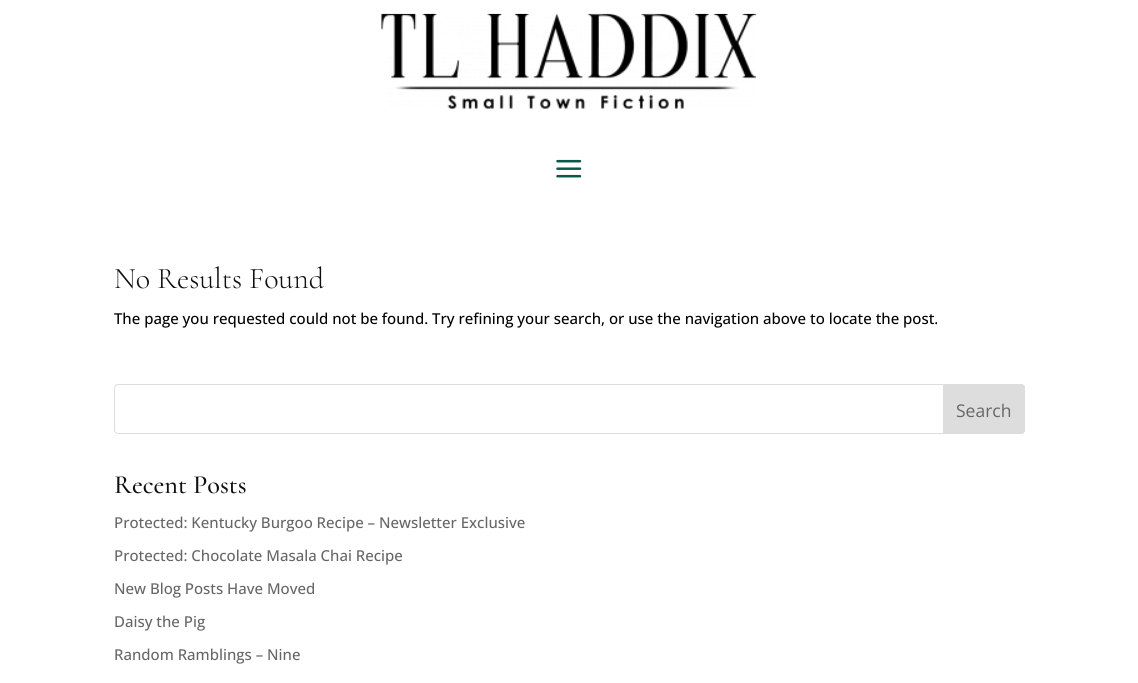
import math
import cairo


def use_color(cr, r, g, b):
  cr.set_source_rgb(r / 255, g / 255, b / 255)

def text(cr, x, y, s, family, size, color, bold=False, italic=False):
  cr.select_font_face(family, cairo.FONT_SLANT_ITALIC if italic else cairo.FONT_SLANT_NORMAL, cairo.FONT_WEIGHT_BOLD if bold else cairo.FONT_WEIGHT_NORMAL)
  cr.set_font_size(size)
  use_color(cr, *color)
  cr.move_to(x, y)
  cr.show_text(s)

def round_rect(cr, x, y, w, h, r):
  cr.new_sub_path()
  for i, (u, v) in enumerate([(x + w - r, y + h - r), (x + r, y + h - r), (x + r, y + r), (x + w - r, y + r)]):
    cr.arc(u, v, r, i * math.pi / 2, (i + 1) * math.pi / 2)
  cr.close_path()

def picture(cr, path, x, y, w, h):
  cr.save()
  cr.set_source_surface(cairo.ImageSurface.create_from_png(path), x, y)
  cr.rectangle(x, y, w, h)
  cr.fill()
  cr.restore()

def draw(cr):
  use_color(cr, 255, 255, 255)
  cr.paint()
  picture(cr, "img_01.png", 381, 13, 376, 96)
  picture(cr, "img_02.png", 556, 159, 26, 19)
  round_rect(cr, 114.5, 384.5, 910, 49, 3.5)
  use_color(cr, 221, 221, 221)
  cr.set_line_width(1)
  cr.stroke()
  cr.new_path()
  cr.move_to(943.5, 384.5)
  cr.line_to(1021, 384.5)
  cr.curve_to(1023, 384.5, 1024.5, 386, 1024.5, 388)
  cr.line_to(1024.5, 430)
  cr.curve_to(1024.5, 432, 1023, 433.5, 1021, 433.5)
  cr.line_to(943.5, 433.5)
  cr.close_path()
  cr.fill_preserve()
  cr.stroke()
  text(cr, 114, 288, "No Results Found", "Cormorant Light", 30, (15, 15, 15))
  text(cr, 114, 324, "The page you requested could not be found. Try refining your search, or use the navigation above to locate the post.", "Open Sans Medium", 15, (0, 0, 0))
  text(cr, 956, 417, "Search", "Open Sans", 17.5, (102, 102, 102))
  text(cr, 114, 493, "Recent Posts", "Cormorant Medium", 26.25, (15, 15, 15))
  text(cr, 114, 528, "Protected: Kentucky Burgoo Recipe – Newsletter Exclusive", "Open Sans Medium", 15, (102, 102, 102))
  text(cr, 114, 561, "Protected: Chocolate Masala Chai Recipe", "Open Sans Medium", 15, (102, 102, 102))
  text(cr, 114, 594, "New Blog Posts Have Moved", "Open Sans Medium", 15, (102, 102, 102))
  text(cr, 114, 627, "Daisy the Pig", "Open Sans Medium", 15, (102, 102, 102))
  text(cr, 114, 660, "Random Ramblings – Nine", "Open Sans Medium", 15, (102, 102, 102))


surface = cairo.ImageSurface(cairo.FORMAT_RGB24, 1138, 683)
cr = cairo.Context(surface)
options = cairo.FontOptions()
options.set_hint_metrics(cairo.HINT_METRICS_OFF)
options.set_hint_style(cairo.HINT_STYLE_NONE)
cr.set_font_options(options)
cr.set_miter_limit(4)
draw(cr)
surface.write_to_png("out.png")
